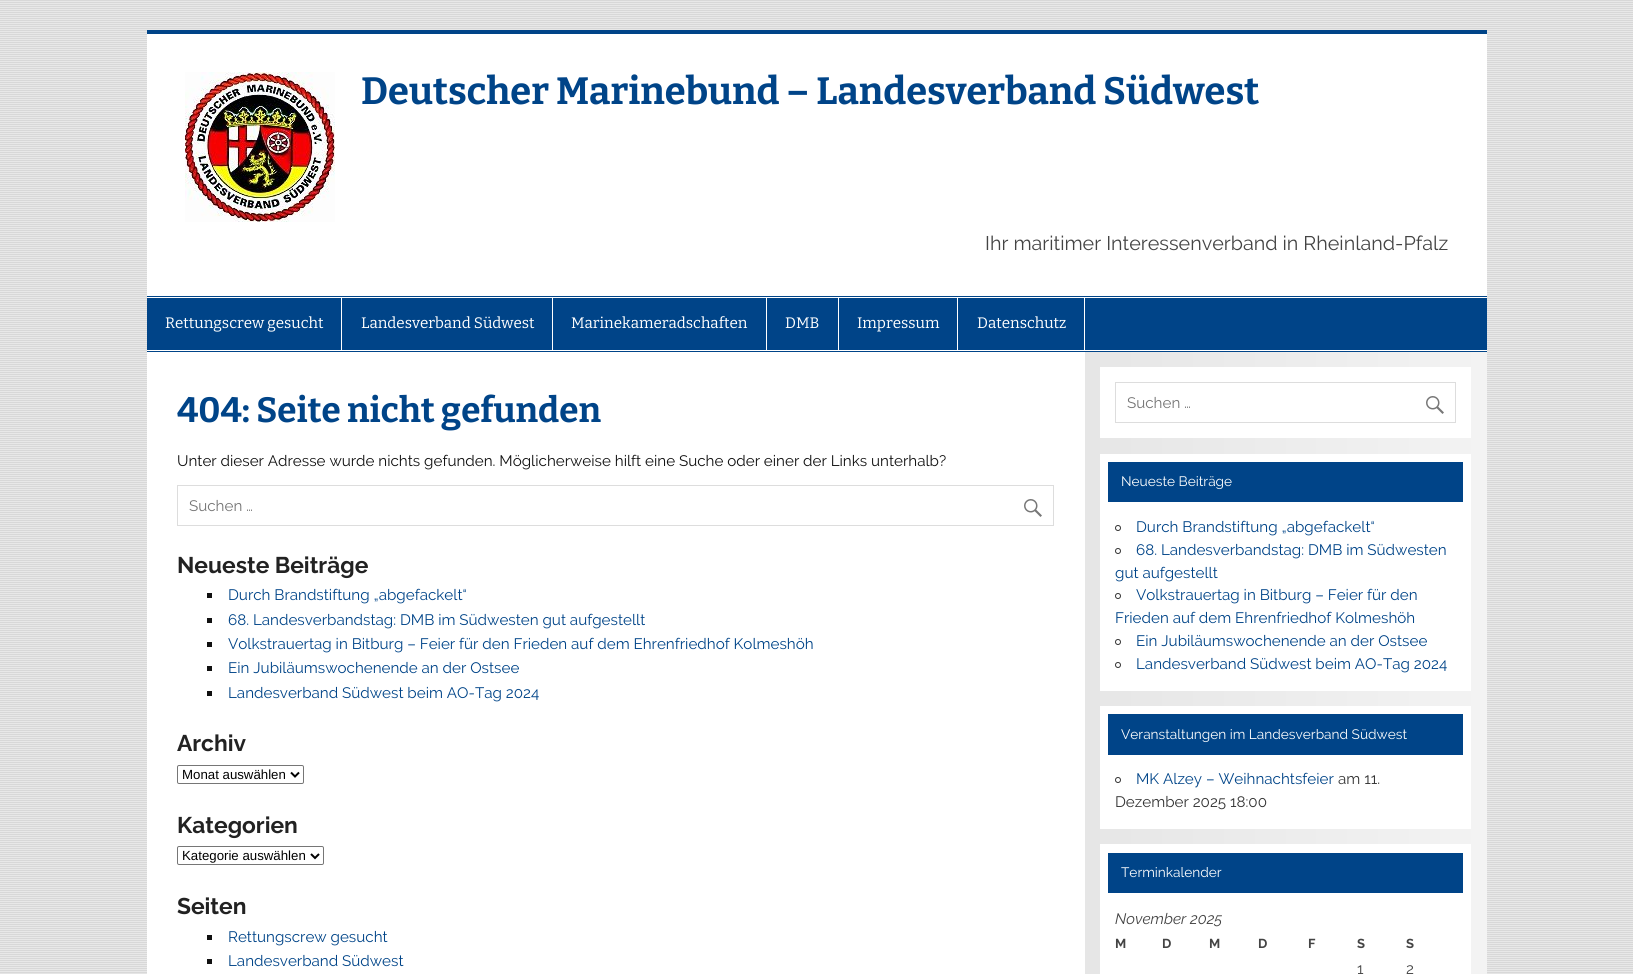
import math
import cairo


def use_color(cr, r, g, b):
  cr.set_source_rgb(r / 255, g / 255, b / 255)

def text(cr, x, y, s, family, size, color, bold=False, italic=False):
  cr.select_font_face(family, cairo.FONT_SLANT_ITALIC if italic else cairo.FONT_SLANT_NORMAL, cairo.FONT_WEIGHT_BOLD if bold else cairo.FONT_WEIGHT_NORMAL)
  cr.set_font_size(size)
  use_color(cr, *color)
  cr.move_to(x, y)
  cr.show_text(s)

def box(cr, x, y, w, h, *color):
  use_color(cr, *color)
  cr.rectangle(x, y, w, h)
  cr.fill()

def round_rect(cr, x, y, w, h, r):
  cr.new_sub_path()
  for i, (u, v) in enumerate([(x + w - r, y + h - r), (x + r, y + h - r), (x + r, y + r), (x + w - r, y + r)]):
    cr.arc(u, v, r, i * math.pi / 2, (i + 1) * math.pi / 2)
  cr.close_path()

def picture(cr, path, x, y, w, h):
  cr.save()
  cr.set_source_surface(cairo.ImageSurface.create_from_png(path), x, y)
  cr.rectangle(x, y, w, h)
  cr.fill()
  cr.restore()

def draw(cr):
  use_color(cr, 229, 229, 229)
  cr.paint()
  picture(cr, "img_01.png", 0, 0, 1633, 973)
  box(cr, 147, 34, 1340, 940, 255, 255, 255)
  box(cr, 147, 30, 1340, 4, 0, 68, 136)
  picture(cr, "img_02.png", 185, 72, 150, 150)
  box(cr, 147, 296, 1340, 1, 0, 68, 136)
  box(cr, 147, 351, 1340, 1, 0, 68, 136)
  box(cr, 147, 298, 1340, 52, 0, 68, 136)
  box(cr, 341, 298, 1, 52, 255, 255, 255)
  box(cr, 552, 298, 1, 52, 255, 255, 255)
  box(cr, 766, 298, 1, 52, 255, 255, 255)
  box(cr, 838, 298, 1, 52, 255, 255, 255)
  box(cr, 957, 298, 1, 52, 255, 255, 255)
  box(cr, 1084, 298, 1, 52, 255, 255, 255)
  cr.rectangle(177.5, 485.5, 876, 40)
  use_color(cr, 221, 221, 221)
  cr.set_line_width(1)
  cr.stroke()
  picture(cr, "img_03.png", 1024, 499, 18, 18)
  box(cr, 207, 593, 5, 5, 17, 17, 17)
  box(cr, 207, 618, 5, 5, 17, 17, 17)
  box(cr, 207, 642, 5, 5, 17, 17, 17)
  box(cr, 207, 666, 5, 5, 17, 17, 17)
  box(cr, 207, 691, 5, 5, 17, 17, 17)
  round_rect(cr, 177.5, 765.5, 126, 18, 1.5)
  use_color(cr, 118, 118, 118)
  cr.stroke()
  cr.new_path()
  cr.move_to(291, 772.5)
  cr.line_to(295, 776.5)
  cr.line_to(299, 772.5)
  use_color(cr, 0, 0, 0)
  cr.set_line_width(2)
  cr.stroke()
  round_rect(cr, 177.5, 846.5, 146, 18, 1.5)
  use_color(cr, 118, 118, 118)
  cr.set_line_width(1)
  cr.stroke()
  cr.new_path()
  cr.move_to(311, 854)
  cr.line_to(315, 858)
  cr.line_to(319, 854)
  use_color(cr, 0, 0, 0)
  cr.set_line_width(2)
  cr.stroke()
  box(cr, 207, 935, 5, 5, 17, 17, 17)
  box(cr, 207, 959, 5, 5, 17, 17, 17)
  gradient = cairo.LinearGradient(1085, 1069, 1487, 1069)
  gradient.add_color_stop_rgba(0, 0.902, 0.902, 0.902, 1)
  gradient.add_color_stop_rgba(1, 0.953, 0.953, 0.953, 1)
  cr.set_source(gradient)
  cr.rectangle(1085, 352, 402, 622)
  cr.fill()
  box(cr, 1100, 367, 371, 71, 255, 255, 255)
  cr.rectangle(1115.5, 382.5, 340, 40)
  use_color(cr, 221, 221, 221)
  cr.set_line_width(1)
  cr.stroke()
  picture(cr, "img_03.png", 1426, 396, 18, 18)
  box(cr, 1100, 454, 371, 237, 255, 255, 255)
  box(cr, 1108, 462, 355, 40, 0, 68, 136)
  cr.arc(1118, 528, 2.5, 0, 2 * math.pi)
  use_color(cr, 51, 51, 51)
  cr.stroke()
  cr.arc(1118, 551, 2.5, 0, 2 * math.pi)
  cr.stroke()
  cr.arc(1118, 596, 2.5, 0, 2 * math.pi)
  cr.stroke()
  cr.arc(1118, 642, 2.5, 0, 2 * math.pi)
  cr.stroke()
  cr.arc(1118, 665, 2.5, 0, 2 * math.pi)
  cr.stroke()
  box(cr, 1100, 706, 371, 123, 255, 255, 255)
  box(cr, 1108, 714, 355, 41, 0, 68, 136)
  cr.arc(1118, 780, 2.5, 0, 2 * math.pi)
  use_color(cr, 51, 51, 51)
  cr.stroke()
  box(cr, 1100, 844, 371, 130, 255, 255, 255)
  box(cr, 1108, 853, 355, 40, 0, 68, 136)
  text(cr, 361, 104, "Deutscher Marinebund – Landesverband Südwest", "Bitter", 38, (0, 68, 136), bold=True)
  text(cr, 985, 250, "Ihr maritimer Interessenverband in Rheinland-Pfalz", "Raleway", 19.75, (68, 68, 68))
  text(cr, 165, 328, "Rettungscrew gesucht", "Bitter", 15.2, (255, 255, 255))
  text(cr, 361, 328, "Landesverband Südwest", "Bitter", 15.2, (255, 255, 255))
  text(cr, 571, 328, "Marinekameradschaften", "Bitter", 15.2, (255, 255, 255))
  text(cr, 785, 328, "DMB", "Bitter", 15.2, (255, 255, 255))
  text(cr, 857, 328, "Impressum", "Bitter", 15.2, (255, 255, 255))
  text(cr, 977, 328, "Datenschutz", "Bitter", 15.2, (255, 255, 255))
  text(cr, 177, 422, "404: Seite nicht gefunden", "Bitter", 35, (0, 68, 136), bold=True)
  text(cr, 177, 466, "Unter dieser Adresse wurde nichts gefunden. Möglicherweise hilft eine Suche oder einer der Links unterhalb?", "Raleway", 15.2, (17, 17, 17))
  text(cr, 189, 511, "Suchen …", "Raleway", 15.2, (117, 117, 117))
  text(cr, 177, 573, "Neueste Beiträge", "Raleway", 22.75, (34, 34, 34), bold=True)
  text(cr, 228, 600, "Durch Brandstiftung „abgefackelt“", "Raleway", 15.2, (0, 68, 136))
  text(cr, 228, 625, "68. Landesverbandstag: DMB im Südwesten gut aufgestellt", "Raleway", 15.2, (0, 68, 136))
  text(cr, 228, 649, "Volkstrauertag in Bitburg – Feier für den Frieden auf dem Ehrenfriedhof Kolmeshöh", "Raleway", 15.2, (0, 68, 136))
  text(cr, 228, 673, "Ein Jubiläumswochenende an der Ostsee", "Raleway", 15.2, (0, 68, 136))
  text(cr, 228, 698, "Landesverband Südwest beim AO-Tag 2024", "Raleway", 15.2, (0, 68, 136))
  text(cr, 177, 751, "Archiv", "Raleway", 22.75, (34, 34, 34), bold=True)
  text(cr, 182, 779, "Monat auswählen", "Liberation Sans", 13.25, (0, 0, 0))
  text(cr, 177, 833, "Kategorien", "Raleway", 22.75, (34, 34, 34), bold=True)
  text(cr, 182, 860, "Kategorie auswählen", "Liberation Sans", 13.25, (0, 0, 0))
  text(cr, 177, 914, "Seiten", "Raleway", 22.75, (34, 34, 34), bold=True)
  text(cr, 228, 942, "Rettungscrew gesucht", "Raleway", 15.2, (0, 68, 136))
  text(cr, 228, 966, "Landesverband Südwest", "Raleway", 15.2, (0, 68, 136))
  text(cr, 1127, 408, "Suchen …", "Raleway", 15.2, (117, 117, 117))
  text(cr, 1121, 486, "Neueste Beiträge", "Raleway", 13.7, (255, 255, 255))
  text(cr, 1136, 532, "Durch Brandstiftung „abgefackelt“", "Raleway", 15.2, (0, 68, 136))
  text(cr, 1136, 555, "68. Landesverbandstag: DMB im Südwesten", "Raleway", 15.2, (0, 68, 136))
  text(cr, 1115, 578, "gut aufgestellt", "Raleway", 15.2, (0, 68, 136))
  text(cr, 1136, 600, "Volkstrauertag in Bitburg – Feier für den", "Raleway", 15.2, (0, 68, 136))
  text(cr, 1115, 623, "Frieden auf dem Ehrenfriedhof Kolmeshöh", "Raleway", 15.2, (0, 68, 136))
  text(cr, 1136, 646, "Ein Jubiläumswochenende an der Ostsee", "Raleway", 15.2, (0, 68, 136))
  text(cr, 1136, 669, "Landesverband Südwest beim AO-Tag 2024", "Raleway", 15.2, (0, 68, 136))
  text(cr, 1121, 739, "Veranstaltungen im Landesverband Südwest", "Raleway", 13.7, (255, 255, 255))
  text(cr, 1136, 784, "MK Alzey – Weihnachtsfeier", "Raleway", 15.2, (0, 68, 136))
  text(cr, 1338, 784, "am 11.", "Raleway", 15.2, (51, 51, 51))
  text(cr, 1115, 807, "Dezember 2025 18:00", "Raleway", 15.2, (51, 51, 51))
  text(cr, 1121, 877, "Terminkalender", "Raleway", 13.7, (255, 255, 255))
  text(cr, 1115, 924, "November 2025", "Raleway", 15.2, (68, 68, 68), italic=True)
  text(cr, 1115, 948, "M", "Raleway", 13, (68, 68, 68), bold=True)
  text(cr, 1162, 948, "D", "Raleway", 13, (68, 68, 68), bold=True)
  text(cr, 1209, 948, "M", "Raleway", 13, (68, 68, 68), bold=True)
  text(cr, 1258, 948, "D", "Raleway", 13, (68, 68, 68), bold=True)
  text(cr, 1308, 948, "F", "Raleway", 13, (68, 68, 68), bold=True)
  text(cr, 1357, 948, "S", "Raleway", 13, (68, 68, 68), bold=True)
  text(cr, 1406, 948, "S", "Raleway", 13, (68, 68, 68), bold=True)
  text(cr, 1357, 974, "1", "Raleway", 15.2, (68, 68, 68))
  text(cr, 1406, 974, "2", "Raleway", 15.2, (68, 68, 68))


surface = cairo.ImageSurface(cairo.FORMAT_RGB24, 1633, 974)
cr = cairo.Context(surface)
options = cairo.FontOptions()
options.set_hint_metrics(cairo.HINT_METRICS_OFF)
options.set_hint_style(cairo.HINT_STYLE_NONE)
cr.set_font_options(options)
cr.set_miter_limit(4)
draw(cr)
surface.write_to_png("out.png")
